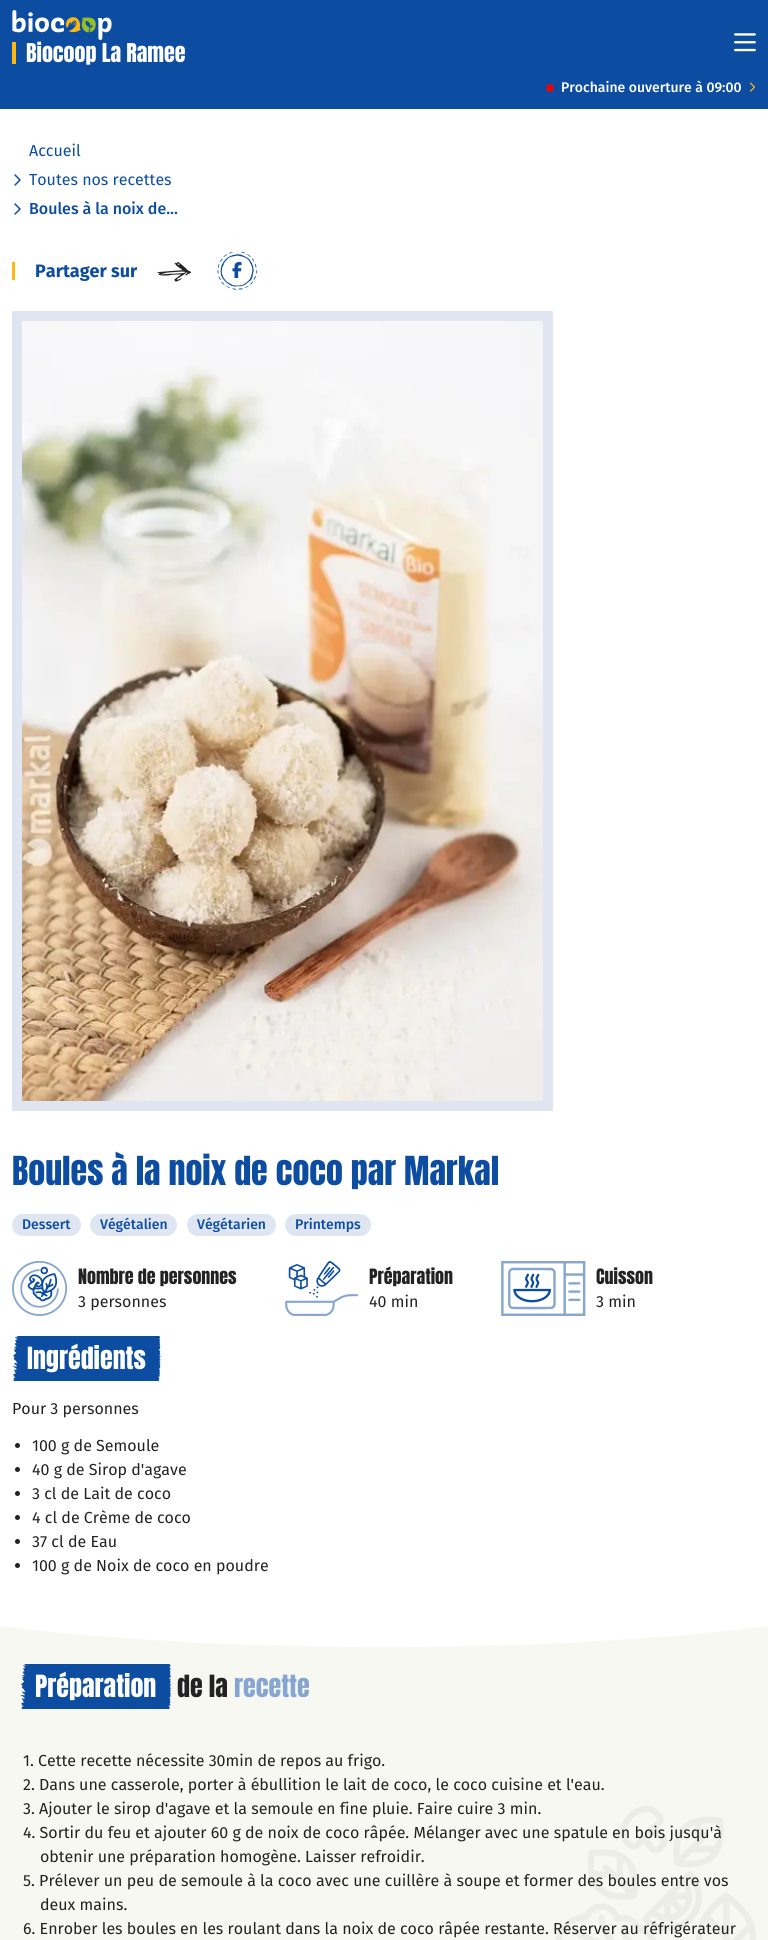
import math
import cairo


def use_color(cr, r, g, b):
  cr.set_source_rgb(r / 255, g / 255, b / 255)

def text(cr, x, y, s, family, size, color, bold=False, italic=False):
  cr.select_font_face(family, cairo.FONT_SLANT_ITALIC if italic else cairo.FONT_SLANT_NORMAL, cairo.FONT_WEIGHT_BOLD if bold else cairo.FONT_WEIGHT_NORMAL)
  cr.set_font_size(size)
  use_color(cr, *color)
  cr.move_to(x, y)
  cr.show_text(s)

def box(cr, x, y, w, h, *color):
  use_color(cr, *color)
  cr.rectangle(x, y, w, h)
  cr.fill()

def round_rect(cr, x, y, w, h, r):
  cr.new_sub_path()
  for i, (u, v) in enumerate([(x + w - r, y + h - r), (x + r, y + h - r), (x + r, y + r), (x + w - r, y + r)]):
    cr.arc(u, v, r, i * math.pi / 2, (i + 1) * math.pi / 2)
  cr.close_path()

def picture(cr, path, x, y, w, h):
  cr.save()
  cr.set_source_surface(cairo.ImageSurface.create_from_png(path), x, y)
  cr.rectangle(x, y, w, h)
  cr.fill()
  cr.restore()

def draw(cr):
  use_color(cr, 255, 255, 255)
  cr.paint()
  box(cr, 0, 0, 768, 109, 12, 77, 162)
  picture(cr, "img_01.png", 12, 10, 100, 30)
  box(cr, 12, 42, 4, 22, 253, 184, 19)
  picture(cr, "img_02.png", 734, 33, 22, 19)
  use_color(cr, 218, 8, 18)
  cr.arc(550, 88, 4, 0, 2 * math.pi)
  cr.fill()
  picture(cr, "img_03.png", 749, 82, 7, 10)
  picture(cr, "img_04.png", 14, 174, 7, 12)
  picture(cr, "img_04.png", 14, 203, 7, 12)
  box(cr, 12, 262, 3, 18, 253, 184, 19)
  picture(cr, "img_05.png", 157, 261, 35, 21)
  picture(cr, "img_06.png", 217, 252, 40, 38)
  picture(cr, "img_07.png", 232, 262, 10, 16)
  cr.rectangle(17, 316, 531, 790)
  use_color(cr, 223, 229, 241)
  cr.set_line_width(10)
  cr.stroke()
  picture(cr, "img_08.png", 22, 321, 521, 780)
  round_rect(cr, 12, 1214, 69, 22, 11)
  cr.fill()
  round_rect(cr, 90, 1214, 87, 22, 11)
  cr.fill()
  round_rect(cr, 187, 1214, 89, 22, 11)
  cr.fill()
  round_rect(cr, 285, 1214, 86, 22, 11)
  cr.fill()
  picture(cr, "img_09.png", 12, 1261, 56, 55)
  picture(cr, "img_10.png", 285, 1261, 74, 55)
  picture(cr, "img_11.png", 501, 1261, 85, 55)
  picture(cr, "img_12.png", 12, 1336, 149, 45)
  use_color(cr, 34, 34, 34)
  cr.arc(17.5, 1445.5, 2.5, 0, 2 * math.pi)
  cr.fill()
  cr.arc(17.5, 1469.5, 2.5, 0, 2 * math.pi)
  cr.fill()
  cr.arc(17.5, 1493.5, 2.5, 0, 2 * math.pi)
  cr.fill()
  cr.arc(17.5, 1517.5, 2.5, 0, 2 * math.pi)
  cr.fill()
  cr.arc(17.5, 1541.5, 2.5, 0, 2 * math.pi)
  cr.fill()
  cr.arc(17.5, 1565.5, 2.5, 0, 2 * math.pi)
  cr.fill()
  box(cr, 0, 1626, 768, 314, 248, 248, 242)
  cr.save()
  cr.rectangle(0, 1594, 768, 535)
  cr.clip()
  use_color(cr, 255, 255, 255)
  cr.new_path()
  cr.move_to(384, 1457)
  cr.curve_to(723.5, 1457, 998.5, 1499.5, 998.5, 1552)
  cr.curve_to(998.5, 1604.5, 723.5, 1647, 384, 1647)
  cr.curve_to(44.5, 1647, -230.5, 1604.5, -230.5, 1552)
  cr.curve_to(-230.5, 1499.5, 44.5, 1457, 384, 1457)
  cr.close_path()
  cr.fill()
  cr.restore()
  picture(cr, "img_13.png", 20, 1664, 151, 45)
  text(cr, 26, 62, "Biocoop La Ramee", "Anton", 22, (255, 255, 255))
  text(cr, 561, 92, "Prochaine ouverture à 09:00", "Fira Sans Medium", 14, (255, 255, 255))
  text(cr, 29, 156, "Accueil", "Fira Sans", 16, (12, 77, 162))
  text(cr, 29, 185, "Toutes nos recettes", "Fira Sans", 16, (12, 77, 162))
  text(cr, 29, 214, "Boules à la noix de...", "Fira Sans Medium", 16, (12, 77, 162))
  text(cr, 35, 277, "Partager sur", "Fira Sans", 18, (12, 77, 162), bold=True)
  text(cr, 12, 1185, "Boules à la noix de coco par Markal", "Anton", 34, (12, 77, 162))
  text(cr, 22, 1229, "Dessert", "Fira Sans Medium", 14, (12, 77, 162))
  text(cr, 100, 1229, "Végétalien", "Fira Sans Medium", 14, (12, 77, 162))
  text(cr, 197, 1229, "Végétarien", "Fira Sans Medium", 14, (12, 77, 162))
  text(cr, 295, 1229, "Printemps", "Fira Sans Medium", 14, (12, 77, 162))
  text(cr, 78, 1284, "Nombre de personnes", "Anton", 18, (34, 34, 34))
  text(cr, 78, 1307, "3 personnes", "Fira Sans", 16, (34, 34, 34))
  text(cr, 369, 1284, "Préparation", "Anton", 18, (34, 34, 34))
  text(cr, 369, 1307, "40 min", "Fira Sans", 16, (34, 34, 34))
  text(cr, 596, 1284, "Cuisson", "Anton", 18, (34, 34, 34))
  text(cr, 596, 1307, "3 min", "Fira Sans", 16, (34, 34, 34))
  text(cr, 27, 1369, "Ingrédients", "Anton", 26, (255, 255, 255))
  text(cr, 12, 1414, "Pour 3 personnes", "Fira Sans", 16, (34, 34, 34))
  text(cr, 32, 1451, "100 g de Semoule", "Fira Sans", 16, (34, 34, 34))
  text(cr, 32, 1475, "40 g de Sirop d'agave", "Fira Sans", 16, (34, 34, 34))
  text(cr, 32, 1499, "3 cl de Lait de coco", "Fira Sans", 16, (34, 34, 34))
  text(cr, 32, 1523, "4 cl de Crème de coco", "Fira Sans", 16, (34, 34, 34))
  text(cr, 32, 1547, "37 cl de Eau", "Fira Sans", 16, (34, 34, 34))
  text(cr, 32, 1571, "100 g de Noix de coco en poudre", "Fira Sans", 16, (34, 34, 34))
  text(cr, 35, 1697, "Préparation", "Anton", 26, (255, 255, 255))
  text(cr, 177, 1697, "de la", "Anton", 26, (34, 34, 34))
  text(cr, 234, 1697, "recette", "Anton", 26, (134, 166, 209))
  text(cr, 23, 1766, "1. Cette recette nécessite 30min de repos au frigo.", "Fira Sans", 16, (34, 34, 34))
  text(cr, 23, 1790, "2. Dans une casserole, porter à ébullition le lait de coco, le coco cuisine et l'eau.", "Fira Sans", 16, (34, 34, 34))
  text(cr, 23, 1814, "3. Ajouter le sirop d'agave et la semoule en fine pluie. Faire cuire 3 min.", "Fira Sans", 16, (34, 34, 34))
  text(cr, 23, 1838, "4. Sortir du feu et ajouter 60 g de noix de coco râpée. Mélanger avec une spatule en bois jusqu'à", "Fira Sans", 16, (34, 34, 34))
  text(cr, 40, 1862, "obtenir une préparation homogène. Laisser refroidir.", "Fira Sans", 16, (34, 34, 34))
  text(cr, 23, 1886, "5. Prélever un peu de semoule à la coco avec une cuillère à soupe et former des boules entre vos", "Fira Sans", 16, (34, 34, 34))
  text(cr, 40, 1910, "deux mains.", "Fira Sans", 16, (34, 34, 34))
  text(cr, 23, 1934, "6. Enrober les boules en les roulant dans la noix de coco râpée restante. Réserver au réfrigérateur", "Fira Sans", 16, (34, 34, 34))
  picture(cr, "img_14.png", 555, 1806, 201, 134)


surface = cairo.ImageSurface(cairo.FORMAT_RGB24, 768, 1940)
cr = cairo.Context(surface)
options = cairo.FontOptions()
options.set_hint_metrics(cairo.HINT_METRICS_OFF)
options.set_hint_style(cairo.HINT_STYLE_NONE)
cr.set_font_options(options)
cr.set_miter_limit(4)
draw(cr)
surface.write_to_png("out.png")
